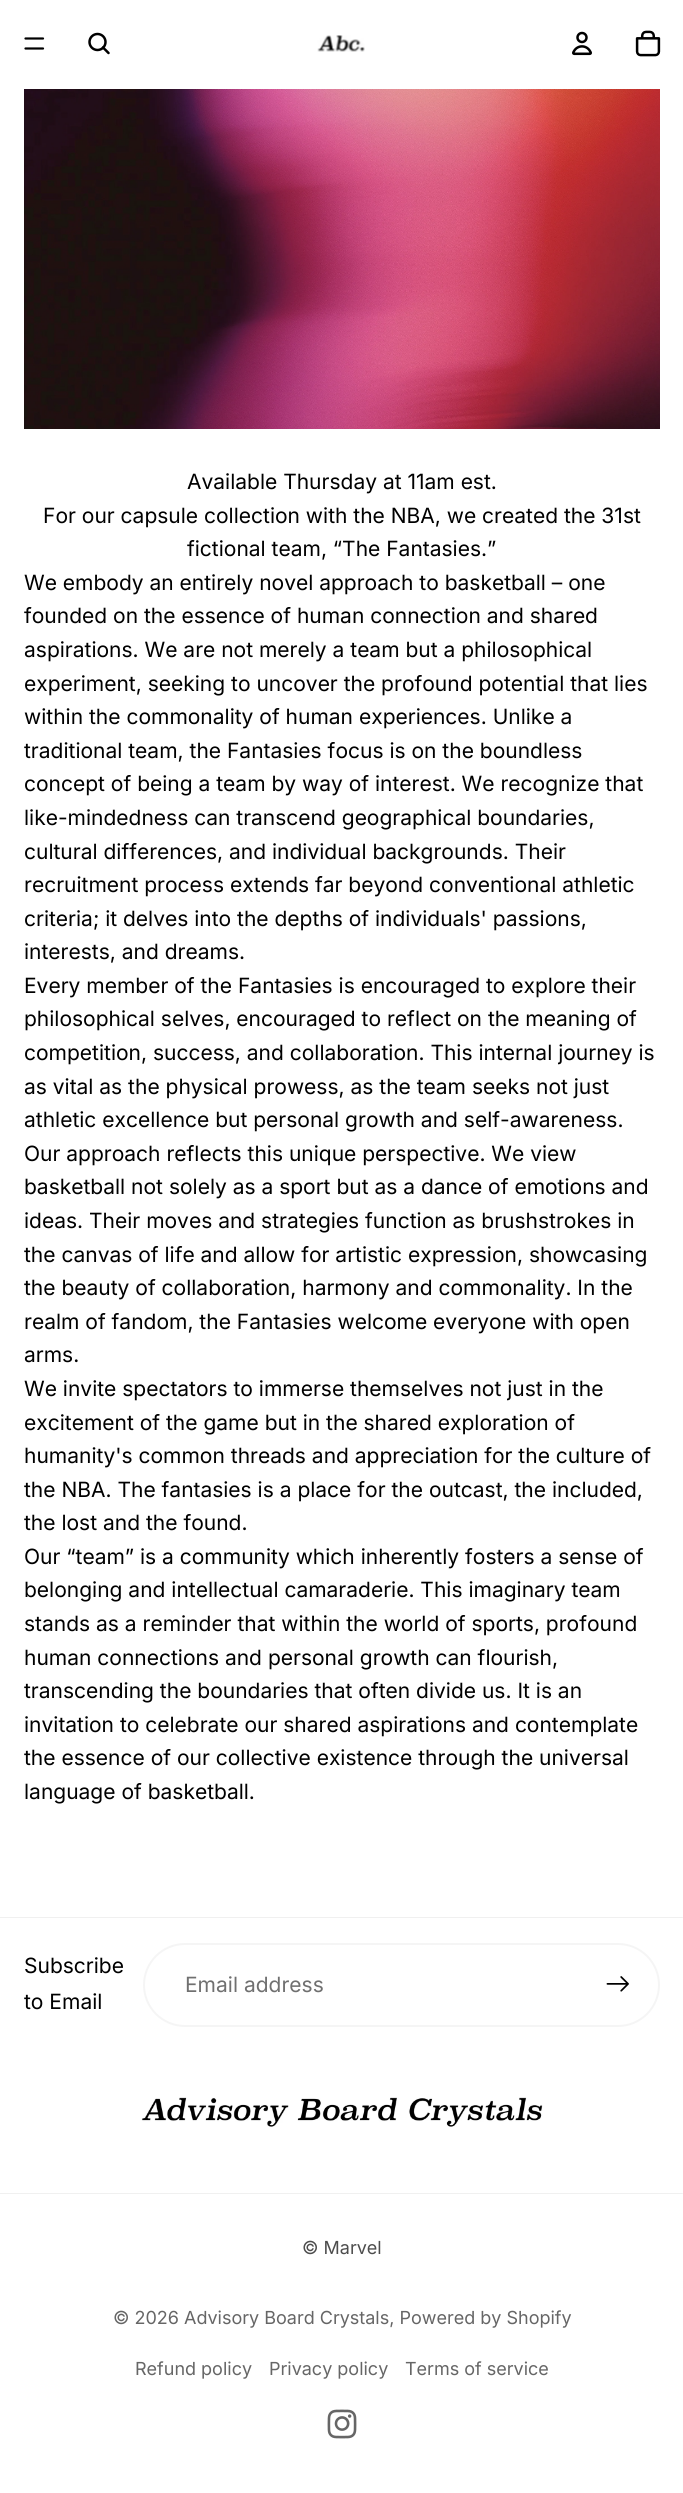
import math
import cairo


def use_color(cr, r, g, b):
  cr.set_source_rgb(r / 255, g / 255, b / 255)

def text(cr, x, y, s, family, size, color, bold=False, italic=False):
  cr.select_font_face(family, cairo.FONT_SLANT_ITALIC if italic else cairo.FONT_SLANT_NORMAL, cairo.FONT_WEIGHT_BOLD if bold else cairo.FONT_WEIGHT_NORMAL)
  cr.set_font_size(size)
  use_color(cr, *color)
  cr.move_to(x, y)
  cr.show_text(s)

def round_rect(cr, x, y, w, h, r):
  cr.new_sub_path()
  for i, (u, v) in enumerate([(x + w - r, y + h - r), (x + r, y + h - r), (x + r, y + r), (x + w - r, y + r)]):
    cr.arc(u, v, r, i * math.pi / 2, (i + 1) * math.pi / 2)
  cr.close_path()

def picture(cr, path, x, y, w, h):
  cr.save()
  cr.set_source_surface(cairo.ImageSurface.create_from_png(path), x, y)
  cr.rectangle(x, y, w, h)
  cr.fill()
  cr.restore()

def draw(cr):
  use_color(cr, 255, 255, 255)
  cr.paint()
  cr.new_path()
  cr.move_to(25.5, 38.5)
  cr.line_to(43, 38.5)
  cr.move_to(25.5, 48.5)
  cr.line_to(43, 48.5)
  use_color(cr, 0, 0, 0)
  cr.set_line_width(2.2)
  cr.set_line_cap(cairo.LINE_CAP_ROUND)
  cr.stroke()
  cr.arc(97.5, 42, 8, 0, 2 * math.pi)
  cr.set_line_width(2.5)
  cr.set_line_cap(cairo.LINE_CAP_BUTT)
  cr.stroke()
  cr.new_path()
  cr.move_to(103, 47.5)
  cr.line_to(108.5, 53)
  cr.set_line_cap(cairo.LINE_CAP_ROUND)
  cr.set_line_join(cairo.LINE_JOIN_ROUND)
  cr.stroke()
  picture(cr, "img_01.png", 317, 35, 48, 17)
  picture(cr, "img_02.png", 572, 31, 20, 25)
  picture(cr, "img_03.png", 635, 30, 26, 27)
  picture(cr, "img_04.png", 24, 89, 636, 340)
  use_color(cr, 240, 240, 240)
  cr.new_path()
  cr.move_to(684, 1918)
  cr.line_to(0, 1918)
  cr.line_to(0, 1917)
  cr.line_to(682, 1917)
  cr.close_path()
  cr.fill()
  round_rect(cr, 144, 1944, 515, 82, 41)
  use_color(cr, 245, 245, 245)
  cr.set_line_width(2)
  cr.set_line_cap(cairo.LINE_CAP_BUTT)
  cr.set_line_join(cairo.LINE_JOIN_MITER)
  cr.stroke()
  picture(cr, "img_05.png", 606, 1976, 23, 16)
  picture(cr, "img_06.png", 141, 2097, 402, 30)
  use_color(cr, 240, 240, 240)
  cr.new_path()
  cr.move_to(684, 2194)
  cr.line_to(0, 2194)
  cr.line_to(0, 2193)
  cr.line_to(682, 2193)
  cr.close_path()
  cr.fill()
  picture(cr, "img_07.png", 327, 2409, 30, 30)
  text(cr, 187, 489, "Available Thursday at 11am est.", "Inter", 21, (0, 0, 0))
  text(cr, 43, 523, "For our capsule collection with the NBA, we created the 31st", "Inter", 21, (0, 0, 0))
  text(cr, 187, 556, "fictional team, “The Fantasies.”", "Inter", 21, (0, 0, 0))
  text(cr, 24, 590, "We embody an entirely novel approach to basketball – one", "Inter", 21, (0, 0, 0))
  text(cr, 24, 623, "founded on the essence of human connection and shared", "Inter", 21, (0, 0, 0))
  text(cr, 24, 657, "aspirations. We are not merely a team but a philosophical", "Inter", 21, (0, 0, 0))
  text(cr, 24, 691, "experiment, seeking to uncover the profound potential that lies", "Inter", 21, (0, 0, 0))
  text(cr, 24, 724, "within the commonality of human experiences. Unlike a", "Inter", 21, (0, 0, 0))
  text(cr, 24, 758, "traditional team, the Fantasies focus is on the boundless", "Inter", 21, (0, 0, 0))
  text(cr, 24, 791, "concept of being a team by way of interest. We recognize that", "Inter", 21, (0, 0, 0))
  text(cr, 24, 825, "like-mindedness can transcend geographical boundaries,", "Inter", 21, (0, 0, 0))
  text(cr, 24, 859, "cultural differences, and individual backgrounds. Their", "Inter", 21, (0, 0, 0))
  text(cr, 24, 892, "recruitment process extends far beyond conventional athletic", "Inter", 21, (0, 0, 0))
  text(cr, 24, 926, "criteria; it delves into the depths of individuals' passions,", "Inter", 21, (0, 0, 0))
  text(cr, 24, 959, "interests, and dreams.", "Inter", 21, (0, 0, 0))
  text(cr, 24, 993, "Every member of the Fantasies is encouraged to explore their", "Inter", 21, (0, 0, 0))
  text(cr, 24, 1026, "philosophical selves, encouraged to reflect on the meaning of", "Inter", 21, (0, 0, 0))
  text(cr, 24, 1060, "competition, success, and collaboration. This internal journey is", "Inter", 21, (0, 0, 0))
  text(cr, 24, 1094, "as vital as the physical prowess, as the team seeks not just", "Inter", 21, (0, 0, 0))
  text(cr, 24, 1127, "athletic excellence but personal growth and self-awareness.", "Inter", 21, (0, 0, 0))
  text(cr, 24, 1161, "Our approach reflects this unique perspective. We view", "Inter", 21, (0, 0, 0))
  text(cr, 24, 1194, "basketball not solely as a sport but as a dance of emotions and", "Inter", 21, (0, 0, 0))
  text(cr, 24, 1228, "ideas. Their moves and strategies function as brushstrokes in", "Inter", 21, (0, 0, 0))
  text(cr, 24, 1262, "the canvas of life and allow for artistic expression, showcasing", "Inter", 21, (0, 0, 0))
  text(cr, 24, 1295, "the beauty of collaboration, harmony and commonality. In the", "Inter", 21, (0, 0, 0))
  text(cr, 24, 1329, "realm of fandom, the Fantasies welcome everyone with open", "Inter", 21, (0, 0, 0))
  text(cr, 24, 1362, "arms.", "Inter", 21, (0, 0, 0))
  text(cr, 24, 1396, "We invite spectators to immerse themselves not just in the", "Inter", 21, (0, 0, 0))
  text(cr, 24, 1430, "excitement of the game but in the shared exploration of", "Inter", 21, (0, 0, 0))
  text(cr, 24, 1463, "humanity's common threads and appreciation for the culture of", "Inter", 21, (0, 0, 0))
  text(cr, 24, 1497, "the NBA. The fantasies is a place for the outcast, the included,", "Inter", 21, (0, 0, 0))
  text(cr, 24, 1530, "the lost and the found.", "Inter", 21, (0, 0, 0))
  text(cr, 24, 1564, "Our “team” is a community which inherently fosters a sense of", "Inter", 21, (0, 0, 0))
  text(cr, 24, 1597, "belonging and intellectual camaraderie. This imaginary team", "Inter", 21, (0, 0, 0))
  text(cr, 24, 1631, "stands as a reminder that within the world of sports, profound", "Inter", 21, (0, 0, 0))
  text(cr, 24, 1665, "human connections and personal growth can flourish,", "Inter", 21, (0, 0, 0))
  text(cr, 24, 1698, "transcending the boundaries that often divide us. It is an", "Inter", 21, (0, 0, 0))
  text(cr, 24, 1732, "invitation to celebrate our shared aspirations and contemplate", "Inter", 21, (0, 0, 0))
  text(cr, 24, 1765, "the essence of our collective existence through the universal", "Inter", 21, (0, 0, 0))
  text(cr, 24, 1799, "language of basketball.", "Inter", 21, (0, 0, 0))
  text(cr, 24, 1973, "Subscribe", "Inter", 21, (0, 0, 0))
  text(cr, 24, 2009, "to Email", "Inter", 21, (0, 0, 0))
  text(cr, 185, 1992, "Email address", "Inter", 21, (112, 112, 112))
  text(cr, 302, 2254, "© Marvel", "Inter", 18, (77, 77, 77))
  text(cr, 113, 2324, "© 2026 Advisory Board Crystals, Powered by Shopify", "Inter", 18, (102, 102, 102))
  text(cr, 135, 2375, "Refund policy", "Inter", 18, (102, 102, 102))
  text(cr, 269, 2375, "Privacy policy", "Inter", 18, (102, 102, 102))
  text(cr, 405, 2375, "Terms of service", "Inter", 18, (102, 102, 102))


surface = cairo.ImageSurface(cairo.FORMAT_RGB24, 683, 2493)
cr = cairo.Context(surface)
options = cairo.FontOptions()
options.set_hint_metrics(cairo.HINT_METRICS_OFF)
options.set_hint_style(cairo.HINT_STYLE_NONE)
cr.set_font_options(options)
cr.set_miter_limit(4)
draw(cr)
surface.write_to_png("out.png")
